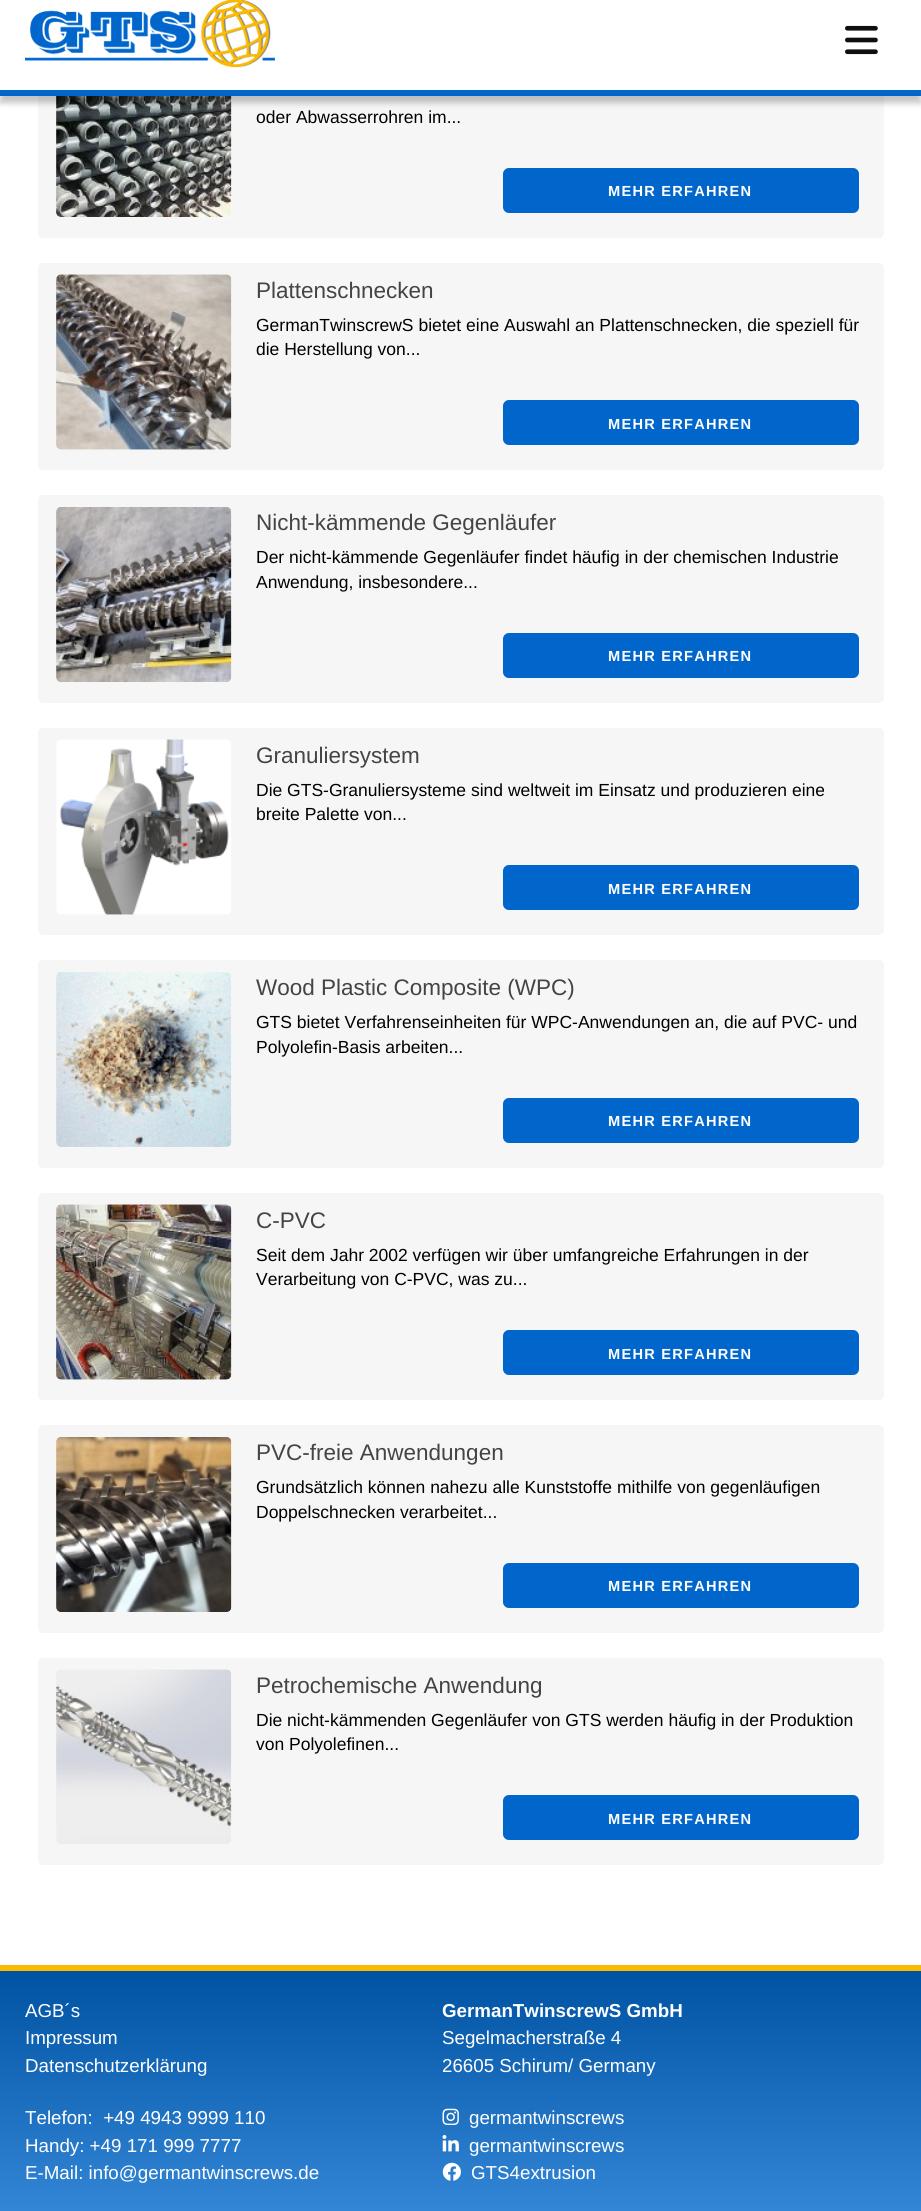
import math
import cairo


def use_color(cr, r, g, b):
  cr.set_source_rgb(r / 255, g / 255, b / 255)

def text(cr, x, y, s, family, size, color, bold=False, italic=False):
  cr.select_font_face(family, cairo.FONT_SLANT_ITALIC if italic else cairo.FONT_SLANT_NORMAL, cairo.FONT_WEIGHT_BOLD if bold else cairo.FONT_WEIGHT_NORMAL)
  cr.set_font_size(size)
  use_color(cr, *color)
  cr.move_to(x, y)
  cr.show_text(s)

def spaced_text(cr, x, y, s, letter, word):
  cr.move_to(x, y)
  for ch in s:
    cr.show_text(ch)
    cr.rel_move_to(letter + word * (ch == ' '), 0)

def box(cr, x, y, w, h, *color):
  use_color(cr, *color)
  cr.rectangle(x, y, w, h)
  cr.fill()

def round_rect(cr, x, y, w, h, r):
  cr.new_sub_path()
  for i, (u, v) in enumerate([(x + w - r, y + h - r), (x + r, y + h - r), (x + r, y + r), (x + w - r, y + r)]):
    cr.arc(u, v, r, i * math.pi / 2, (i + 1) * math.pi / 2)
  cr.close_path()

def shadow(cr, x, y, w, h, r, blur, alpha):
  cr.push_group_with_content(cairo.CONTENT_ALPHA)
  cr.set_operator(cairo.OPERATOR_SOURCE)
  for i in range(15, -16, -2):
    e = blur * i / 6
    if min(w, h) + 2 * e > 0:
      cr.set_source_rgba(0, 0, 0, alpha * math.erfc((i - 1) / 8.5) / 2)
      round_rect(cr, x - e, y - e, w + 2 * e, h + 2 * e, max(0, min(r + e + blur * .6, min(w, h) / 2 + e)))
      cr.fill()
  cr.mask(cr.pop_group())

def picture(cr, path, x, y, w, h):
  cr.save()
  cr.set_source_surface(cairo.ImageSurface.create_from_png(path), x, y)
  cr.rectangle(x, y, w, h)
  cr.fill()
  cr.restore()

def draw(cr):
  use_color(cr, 255, 255, 255)
  cr.paint()
  use_color(cr, 246, 246, 246)
  round_rect(cr, 38, 30, 846, 208, 5)
  cr.fill()
  picture(cr, "img_03.png", 56, 96, 176, 121)
  picture(cr, "img_04.png", 56, 96, 176, 121)
  use_color(cr, 17, 17, 17)
  shadow(cr, 0, 6, 921, 97, 0, 3, 0.25)
  box(cr, 0, 1, 921, 89, 255, 255, 255)
  box(cr, 0, 90, 921, 6, 0, 102, 204)
  picture(cr, "img_01.png", 25, 0, 250, 68)
  picture(cr, "img_02.png", 845, 25, 33, 30)
  round_rect(cr, 503, 168, 356, 45, 6)
  cr.fill()
  use_color(cr, 246, 246, 246)
  round_rect(cr, 38, 263, 846, 207, 5)
  cr.fill()
  picture(cr, "img_05.png", 56, 274, 176, 176)
  picture(cr, "img_06.png", 56, 274, 176, 176)
  use_color(cr, 0, 102, 204)
  round_rect(cr, 503, 400, 356, 45, 6)
  cr.fill()
  use_color(cr, 246, 246, 246)
  round_rect(cr, 38, 495, 846, 208, 5)
  cr.fill()
  picture(cr, "img_07.png", 56, 507, 176, 175)
  picture(cr, "img_08.png", 56, 507, 176, 175)
  use_color(cr, 0, 102, 204)
  round_rect(cr, 503, 633, 356, 45, 6)
  cr.fill()
  use_color(cr, 246, 246, 246)
  round_rect(cr, 38, 728, 846, 207, 5)
  cr.fill()
  picture(cr, "img_09.png", 56, 739, 175, 176)
  picture(cr, "img_10.png", 62, 739, 166, 176)
  use_color(cr, 0, 102, 204)
  round_rect(cr, 503, 865, 356, 45, 6)
  cr.fill()
  use_color(cr, 246, 246, 246)
  round_rect(cr, 38, 960, 846, 208, 5)
  cr.fill()
  picture(cr, "img_11.png", 56, 972, 176, 175)
  picture(cr, "img_12.png", 56, 972, 176, 175)
  use_color(cr, 0, 102, 204)
  round_rect(cr, 503, 1098, 356, 45, 6)
  cr.fill()
  use_color(cr, 246, 246, 246)
  round_rect(cr, 38, 1193, 846, 207, 5)
  cr.fill()
  picture(cr, "img_13.png", 56, 1204, 176, 176)
  picture(cr, "img_14.png", 56, 1204, 176, 176)
  use_color(cr, 0, 102, 204)
  round_rect(cr, 503, 1330, 356, 45, 6)
  cr.fill()
  use_color(cr, 246, 246, 246)
  round_rect(cr, 38, 1425, 846, 208, 5)
  cr.fill()
  picture(cr, "img_15.png", 56, 1437, 176, 175)
  picture(cr, "img_16.png", 56, 1437, 176, 175)
  use_color(cr, 0, 102, 204)
  round_rect(cr, 503, 1563, 356, 45, 6)
  cr.fill()
  use_color(cr, 246, 246, 246)
  round_rect(cr, 38, 1658, 846, 207, 5)
  cr.fill()
  picture(cr, "img_17.png", 56, 1669, 176, 175)
  picture(cr, "img_18.png", 56, 1669, 176, 156)
  use_color(cr, 0, 102, 204)
  round_rect(cr, 503, 1795, 356, 45, 6)
  cr.fill()
  gradient = cairo.LinearGradient(461, 1971, 461, 2211)
  gradient.add_color_stop_rgba(0, 0, 0.322, 0.639, 1)
  gradient.add_color_stop_rgba(1, 0.2, 0.522, 0.839, 1)
  cr.set_source(gradient)
  cr.rectangle(0, 1971, 921, 240)
  cr.fill()
  box(cr, 0, 1965, 921, 6, 251, 185, 0)
  picture(cr, "img_19.png", 442, 2108, 17, 17)
  picture(cr, "img_20.png", 442, 2135, 17, 17)
  picture(cr, "img_21.png", 442, 2162, 19, 19)
  text(cr, 256, 123, "oder Abwasserrohren im...", "Liberation Sans", 17.5, (0, 0, 0))
  cr.select_font_face("Liberation Sans", cairo.FONT_SLANT_NORMAL, cairo.FONT_WEIGHT_BOLD)
  cr.set_font_size(14.6)
  use_color(cr, 255, 255, 255)
  spaced_text(cr, 608, 196, "MEHR ERFAHREN", 1.25, 0)
  text(cr, 256, 298, "Plattenschnecken", "Liberation Sans", 22.5, (68, 68, 68))
  text(cr, 256, 331, "GermanTwinscrewS bietet eine Auswahl an Plattenschnecken, die speziell für", "Liberation Sans", 17.5, (0, 0, 0))
  text(cr, 256, 355, "die Herstellung von...", "Liberation Sans", 17.5, (0, 0, 0))
  cr.select_font_face("Liberation Sans", cairo.FONT_SLANT_NORMAL, cairo.FONT_WEIGHT_BOLD)
  cr.set_font_size(14.6)
  use_color(cr, 255, 255, 255)
  spaced_text(cr, 608, 429, "MEHR ERFAHREN", 1.25, 0)
  text(cr, 256, 530, "Nicht-kämmende Gegenläufer", "Liberation Sans", 22.5, (68, 68, 68))
  text(cr, 256, 563, "Der nicht-kämmende Gegenläufer findet häufig in der chemischen Industrie", "Liberation Sans", 17.5, (0, 0, 0))
  text(cr, 256, 588, "Anwendung, insbesondere...", "Liberation Sans", 17.5, (0, 0, 0))
  cr.select_font_face("Liberation Sans", cairo.FONT_SLANT_NORMAL, cairo.FONT_WEIGHT_BOLD)
  cr.set_font_size(14.6)
  use_color(cr, 255, 255, 255)
  spaced_text(cr, 608, 661, "MEHR ERFAHREN", 1.25, 0)
  text(cr, 256, 763, "Granuliersystem", "Liberation Sans", 22.5, (68, 68, 68))
  text(cr, 256, 796, "Die GTS-Granuliersysteme sind weltweit im Einsatz und produzieren eine", "Liberation Sans", 17.5, (0, 0, 0))
  text(cr, 256, 820, "breite Palette von...", "Liberation Sans", 17.5, (0, 0, 0))
  cr.select_font_face("Liberation Sans", cairo.FONT_SLANT_NORMAL, cairo.FONT_WEIGHT_BOLD)
  cr.set_font_size(14.6)
  use_color(cr, 255, 255, 255)
  spaced_text(cr, 608, 894, "MEHR ERFAHREN", 1.25, 0)
  text(cr, 256, 995, "Wood Plastic Composite (WPC)", "Liberation Sans", 22.5, (68, 68, 68))
  text(cr, 256, 1028, "GTS bietet Verfahrenseinheiten für WPC-Anwendungen an, die auf PVC- und", "Liberation Sans", 17.5, (0, 0, 0))
  text(cr, 256, 1053, "Polyolefin-Basis arbeiten...", "Liberation Sans", 17.5, (0, 0, 0))
  cr.select_font_face("Liberation Sans", cairo.FONT_SLANT_NORMAL, cairo.FONT_WEIGHT_BOLD)
  cr.set_font_size(14.6)
  use_color(cr, 255, 255, 255)
  spaced_text(cr, 608, 1126, "MEHR ERFAHREN", 1.25, 0)
  text(cr, 256, 1228, "C-PVC", "Liberation Sans", 22.5, (68, 68, 68))
  text(cr, 256, 1261, "Seit dem Jahr 2002 verfügen wir über umfangreiche Erfahrungen in der", "Liberation Sans", 17.5, (0, 0, 0))
  text(cr, 256, 1285, "Verarbeitung von C-PVC, was zu...", "Liberation Sans", 17.5, (0, 0, 0))
  cr.select_font_face("Liberation Sans", cairo.FONT_SLANT_NORMAL, cairo.FONT_WEIGHT_BOLD)
  cr.set_font_size(14.6)
  use_color(cr, 255, 255, 255)
  spaced_text(cr, 608, 1359, "MEHR ERFAHREN", 1.25, 0)
  text(cr, 256, 1460, "PVC-freie Anwendungen", "Liberation Sans", 22.5, (68, 68, 68))
  text(cr, 256, 1493, "Grundsätzlich können nahezu alle Kunststoffe mithilfe von gegenläufigen", "Liberation Sans", 17.5, (0, 0, 0))
  text(cr, 256, 1518, "Doppelschnecken verarbeitet...", "Liberation Sans", 17.5, (0, 0, 0))
  cr.select_font_face("Liberation Sans", cairo.FONT_SLANT_NORMAL, cairo.FONT_WEIGHT_BOLD)
  cr.set_font_size(14.6)
  use_color(cr, 255, 255, 255)
  spaced_text(cr, 608, 1591, "MEHR ERFAHREN", 1.25, 0)
  text(cr, 256, 1693, "Petrochemische Anwendung", "Liberation Sans", 22.5, (68, 68, 68))
  text(cr, 256, 1726, "Die nicht-kämmenden Gegenläufer von GTS werden häufig in der Produktion", "Liberation Sans", 17.5, (0, 0, 0))
  text(cr, 256, 1750, "von Polyolefinen...", "Liberation Sans", 17.5, (0, 0, 0))
  cr.select_font_face("Liberation Sans", cairo.FONT_SLANT_NORMAL, cairo.FONT_WEIGHT_BOLD)
  cr.set_font_size(14.6)
  use_color(cr, 255, 255, 255)
  spaced_text(cr, 608, 1824, "MEHR ERFAHREN", 1.25, 0)
  text(cr, 25, 2017, "AGB´s", "Liberation Sans", 18.75, (255, 255, 255))
  text(cr, 25, 2044, "Impressum", "Liberation Sans", 18.75, (255, 255, 255))
  text(cr, 25, 2072, "Datenschutzerklärung", "Liberation Sans", 18.75, (255, 255, 255))
  text(cr, 442, 2017, "GermanTwinscrewS GmbH", "Liberation Sans", 18.75, (255, 255, 255), bold=True)
  text(cr, 442, 2044, "Segelmacherstraße 4", "Liberation Sans", 18.75, (255, 255, 255))
  text(cr, 442, 2072, "26605 Schirum/ Germany", "Liberation Sans", 18.75, (255, 255, 255))
  text(cr, 25, 2124, "Telefon:  +49 4943 9999 110", "Liberation Sans", 18.75, (255, 255, 255))
  text(cr, 25, 2152, "Handy: +49 171 999 7777", "Liberation Sans", 18.75, (255, 255, 255))
  text(cr, 25, 2179, "E-Mail: info@germantwinscrews.de", "Liberation Sans", 18.75, (255, 255, 255))
  text(cr, 469, 2124, "germantwinscrews", "Liberation Sans", 18.75, (255, 255, 255))
  text(cr, 469, 2152, "germantwinscrews", "Liberation Sans", 18.75, (255, 255, 255))
  text(cr, 471, 2179, "GTS4extrusion", "Liberation Sans", 18.75, (255, 255, 255))


surface = cairo.ImageSurface(cairo.FORMAT_RGB24, 921, 2211)
cr = cairo.Context(surface)
options = cairo.FontOptions()
options.set_hint_metrics(cairo.HINT_METRICS_OFF)
options.set_hint_style(cairo.HINT_STYLE_NONE)
cr.set_font_options(options)
cr.set_miter_limit(4)
draw(cr)
surface.write_to_png("out.png")
